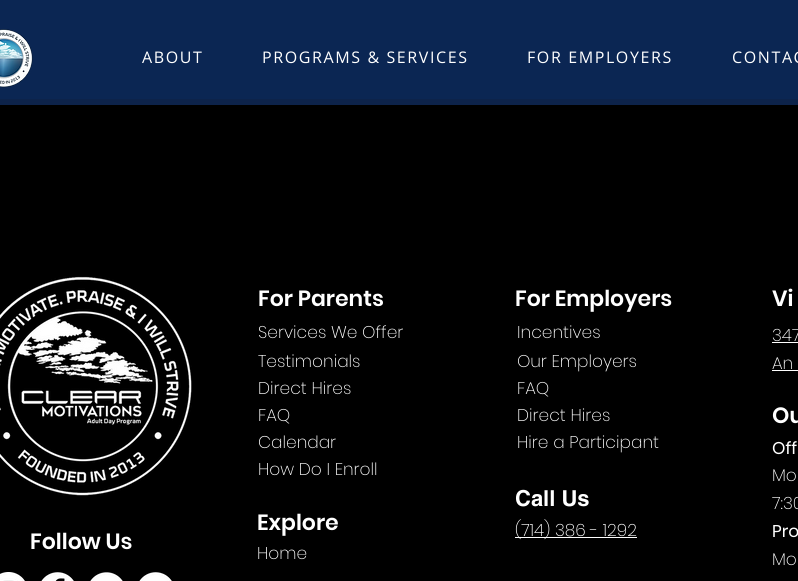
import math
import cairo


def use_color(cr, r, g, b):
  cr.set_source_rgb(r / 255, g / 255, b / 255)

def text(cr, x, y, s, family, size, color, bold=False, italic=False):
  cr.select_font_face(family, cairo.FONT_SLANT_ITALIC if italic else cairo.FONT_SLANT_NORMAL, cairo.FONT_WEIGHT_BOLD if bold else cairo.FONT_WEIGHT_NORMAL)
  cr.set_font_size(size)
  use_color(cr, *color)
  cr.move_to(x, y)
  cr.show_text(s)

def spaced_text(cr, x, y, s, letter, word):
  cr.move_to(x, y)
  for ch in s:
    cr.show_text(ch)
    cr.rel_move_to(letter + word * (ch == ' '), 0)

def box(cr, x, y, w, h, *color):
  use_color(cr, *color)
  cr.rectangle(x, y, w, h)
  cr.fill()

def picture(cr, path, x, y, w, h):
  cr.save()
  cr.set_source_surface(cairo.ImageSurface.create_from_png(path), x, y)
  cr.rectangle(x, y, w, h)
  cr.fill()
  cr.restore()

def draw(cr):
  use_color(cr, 0, 0, 0)
  cr.paint()
  box(cr, 0, 0, 798, 99, 11, 38, 83)
  picture(cr, "img_01.png", 0, 29, 33, 59)
  box(cr, 0, 99, 798, 6, 13, 35, 74)
  picture(cr, "img_02.png", 0, 276, 192, 220)
  picture(cr, "img_03.png", 0, 572, 25, 9)
  picture(cr, "img_04.png", 41, 572, 33, 9)
  picture(cr, "img_05.png", 90, 572, 33, 9)
  picture(cr, "img_06.png", 139, 572, 33, 9)
  box(cr, 515, 537, 122, 1, 255, 255, 255)
  box(cr, 772, 342, 26, 1, 255, 255, 255)
  box(cr, 772, 370, 26, 1, 255, 255, 255)
  cr.select_font_face("Open Sans")
  cr.set_font_size(16)
  spaced_text(cr, 142, 63, "ABOUT", 1.6, 0)
  spaced_text(cr, 262, 63, "PROGRAMS & SERVICES", 1.6, 0)
  spaced_text(cr, 527, 63, "FOR EMPLOYERS", 1.6, 0)
  spaced_text(cr, 732, 63, "CONTAC", 1.6, 0)
  text(cr, 30, 549, "Follow Us", "Poppins SemiBold", 22, (255, 255, 255))
  text(cr, 258, 306, "For Parents", "Poppins SemiBold", 22, (255, 255, 255))
  text(cr, 258, 338, "Services We Offer", "Poppins ExtraLight", 17, (255, 255, 255))
  text(cr, 258, 367, "Testimonials", "Poppins ExtraLight", 17, (255, 255, 255))
  text(cr, 258, 394, "Direct Hires", "Poppins ExtraLight", 17, (255, 255, 255))
  text(cr, 258, 421, "FAQ", "Poppins ExtraLight", 17, (255, 255, 255))
  text(cr, 258, 448, "Calendar", "Poppins ExtraLight", 17, (255, 255, 255))
  text(cr, 258, 475, "How Do I Enroll", "Poppins ExtraLight", 17, (255, 255, 255))
  text(cr, 257, 530, "Explore", "Poppins SemiBold", 22, (255, 255, 255))
  text(cr, 257, 559, "Home", "Poppins ExtraLight", 17, (255, 255, 255))
  text(cr, 515, 306, "For Employers", "Poppins SemiBold", 22, (255, 255, 255))
  text(cr, 517, 338, "Incentives", "Poppins ExtraLight", 17, (255, 255, 255))
  text(cr, 517, 367, "Our Employers", "Poppins ExtraLight", 17, (255, 255, 255))
  text(cr, 517, 394, "FAQ", "Poppins ExtraLight", 17, (255, 255, 255))
  text(cr, 517, 421, "Direct Hires", "Poppins ExtraLight", 17, (255, 255, 255))
  text(cr, 517, 448, "Hire a Participant", "Poppins ExtraLight", 17, (255, 255, 255))
  text(cr, 515, 506, "Call Us", "helvetica", 22, (255, 255, 255), bold=True)
  text(cr, 515, 536, "(714) 386 - 1292", "Poppins ExtraLight", 17, (255, 255, 255))
  text(cr, 772, 306, "Vi", "Poppins SemiBold", 22, (255, 255, 255))
  text(cr, 772, 341, "347", "Poppins ExtraLight", 17, (255, 255, 255))
  text(cr, 772, 369, "An", "Poppins ExtraLight", 17, (255, 255, 255))
  text(cr, 772, 423, "Ou", "Poppins SemiBold", 22, (255, 255, 255))
  text(cr, 772, 454, "Off", "Poppins", 17, (255, 255, 255))
  text(cr, 772, 481, "Mo", "Poppins ExtraLight", 17, (255, 255, 255))
  text(cr, 772, 509, "7:30", "Poppins ExtraLight", 17, (255, 255, 255))
  text(cr, 772, 537, "Pro", "Poppins", 17, (255, 255, 255))
  text(cr, 772, 565, "Mo", "Poppins ExtraLight", 17, (255, 255, 255))


surface = cairo.ImageSurface(cairo.FORMAT_RGB24, 798, 581)
cr = cairo.Context(surface)
options = cairo.FontOptions()
options.set_hint_metrics(cairo.HINT_METRICS_OFF)
options.set_hint_style(cairo.HINT_STYLE_NONE)
cr.set_font_options(options)
cr.set_miter_limit(4)
draw(cr)
surface.write_to_png("out.png")
